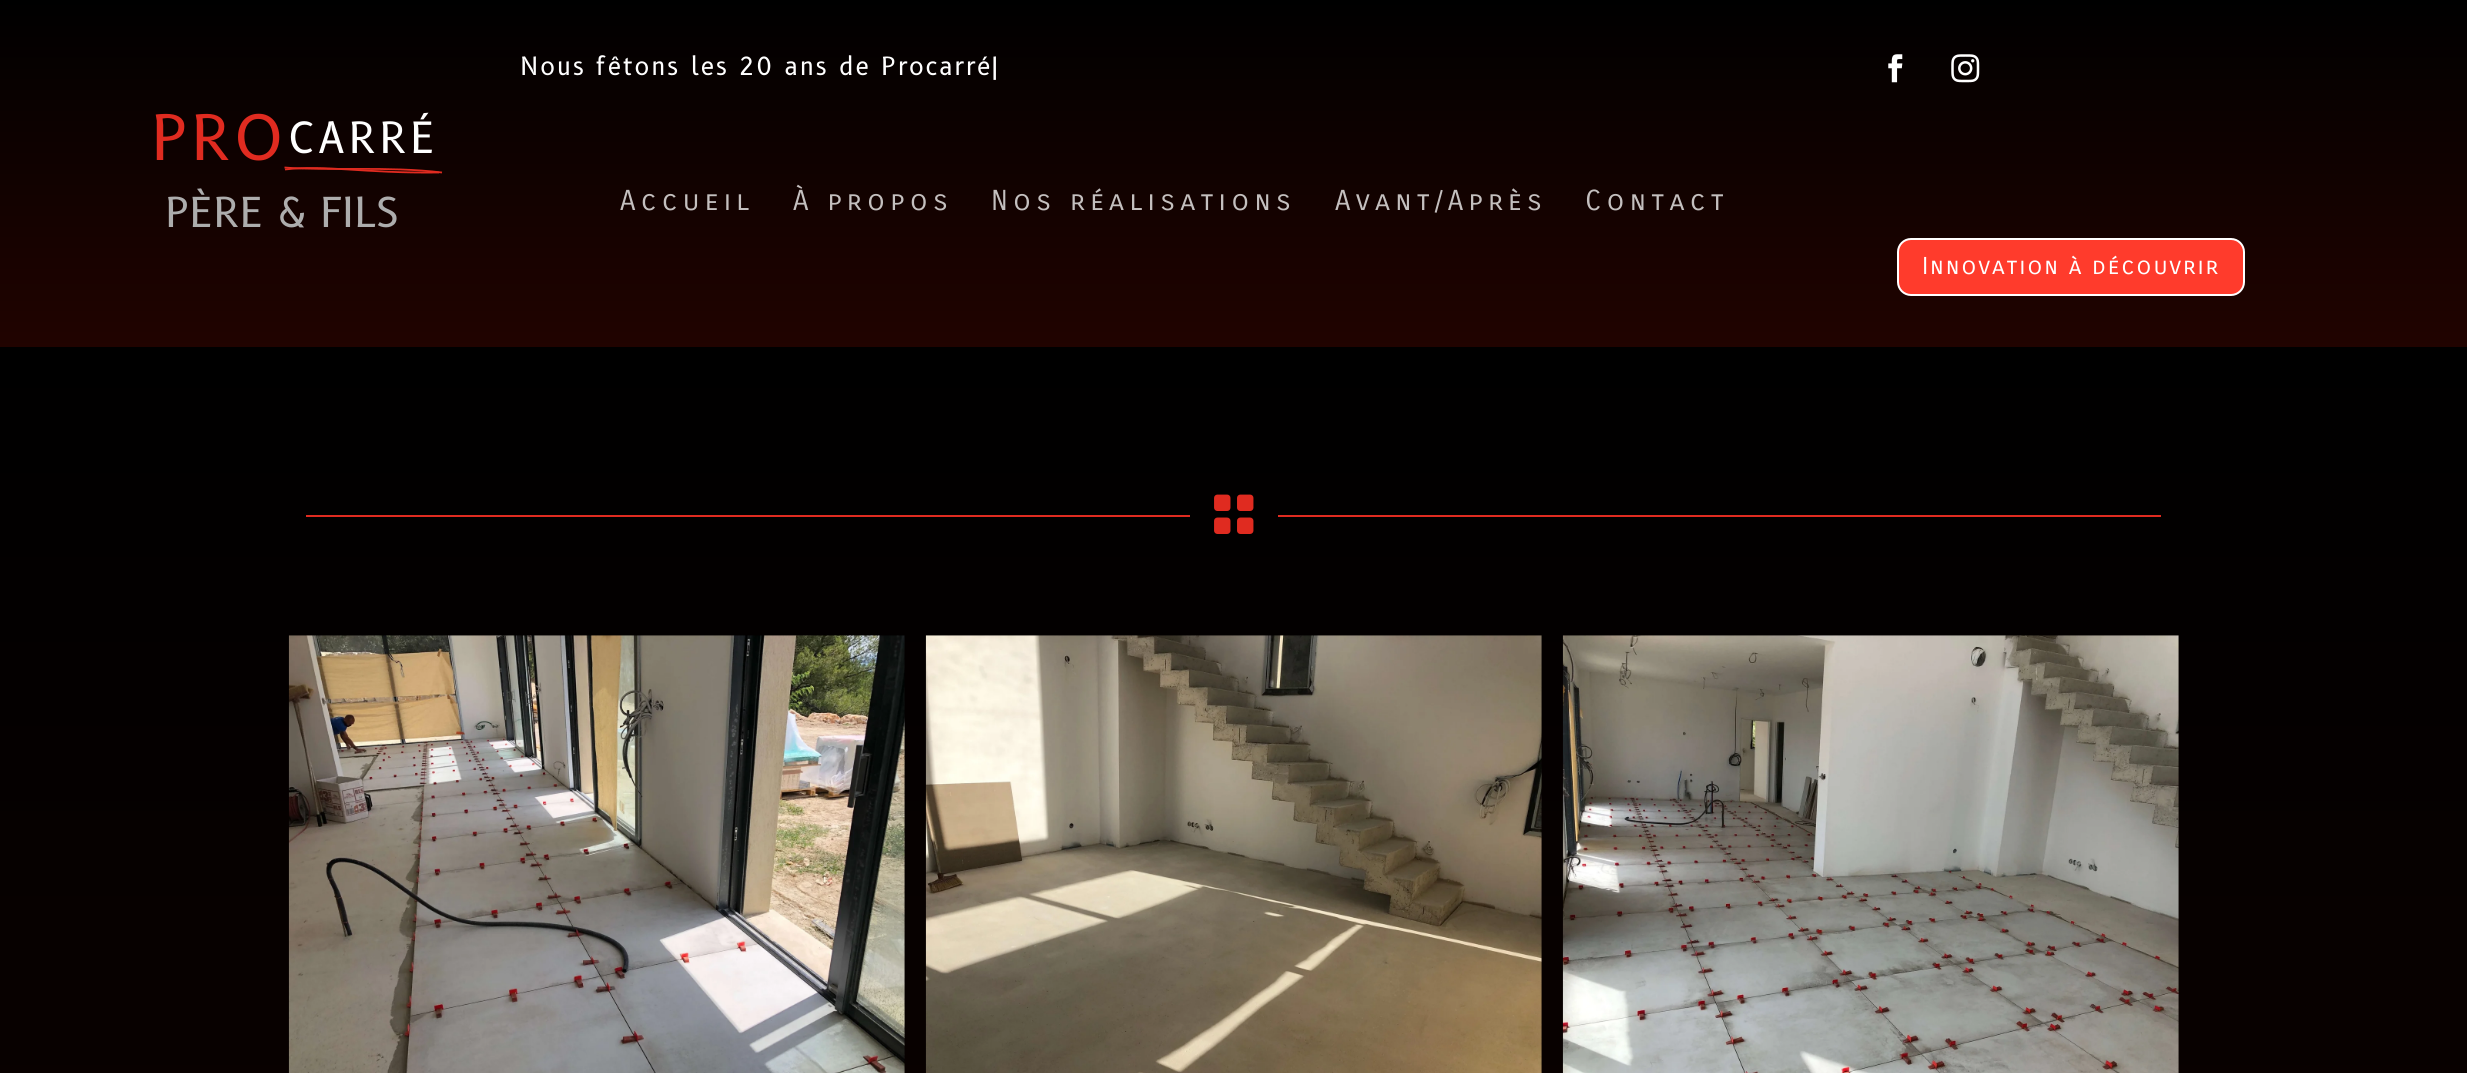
import math
import cairo


def use_color(cr, r, g, b):
  cr.set_source_rgb(r / 255, g / 255, b / 255)

def text(cr, x, y, s, family, size, color, bold=False, italic=False):
  cr.select_font_face(family, cairo.FONT_SLANT_ITALIC if italic else cairo.FONT_SLANT_NORMAL, cairo.FONT_WEIGHT_BOLD if bold else cairo.FONT_WEIGHT_NORMAL)
  cr.set_font_size(size)
  use_color(cr, *color)
  cr.move_to(x, y)
  cr.show_text(s)

def spaced_text(cr, x, y, s, letter, word):
  cr.move_to(x, y)
  for ch in s:
    cr.show_text(ch)
    cr.rel_move_to(letter + word * (ch == ' '), 0)

def box(cr, x, y, w, h, *color):
  use_color(cr, *color)
  cr.rectangle(x, y, w, h)
  cr.fill()

def round_rect(cr, x, y, w, h, r):
  cr.new_sub_path()
  for i, (u, v) in enumerate([(x + w - r, y + h - r), (x + r, y + h - r), (x + r, y + r), (x + w - r, y + r)]):
    cr.arc(u, v, r, i * math.pi / 2, (i + 1) * math.pi / 2)
  cr.close_path()

def picture(cr, path, x, y, w, h):
  cr.save()
  cr.set_source_surface(cairo.ImageSurface.create_from_png(path), x, y)
  cr.rectangle(x, y, w, h)
  cr.fill()
  cr.restore()

def draw(cr):
  use_color(cr, 255, 255, 255)
  cr.paint()
  gradient = cairo.LinearGradient(1234, 0, 1234, 347)
  gradient.add_color_stop_rgba(0, 0, 0, 0, 1)
  gradient.add_color_stop_rgba(1, 0.129, 0.012, 0, 1)
  cr.set_source(gradient)
  cr.rectangle(0, 0, 2467, 347)
  cr.fill()
  picture(cr, "img_01.png", 1888, 54, 15, 29)
  picture(cr, "img_02.png", 1951, 54, 29, 29)
  cr.new_path()
  cr.move_to(285, 169.5)
  cr.curve_to(325, 164.5, 363, 173.5, 439, 172.5)
  use_color(cr, 224, 43, 32)
  cr.set_line_width(1.8)
  cr.stroke()
  cr.new_path()
  cr.move_to(442, 172.5)
  cr.curve_to(388.5, 166, 327, 171, 284.5, 167.5)
  cr.stroke()
  use_color(cr, 255, 59, 44)
  round_rect(cr, 1898, 239, 346, 56, 13)
  cr.fill_preserve()
  use_color(cr, 255, 255, 255)
  cr.set_line_width(2)
  cr.stroke()
  gradient = cairo.LinearGradient(1234, 346, 1234, 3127)
  gradient.add_color_stop_rgba(0, 0, 0, 0, 1)
  gradient.add_color_stop_rgba(1, 0.129, 0.012, 0, 1)
  cr.set_source(gradient)
  cr.rectangle(0, 347, 2467, 726)
  cr.fill()
  box(cr, 306, 515, 884, 2, 224, 43, 32)
  picture(cr, "img_03.png", 1214, 494, 40, 40)
  box(cr, 1278, 515, 883, 2, 224, 43, 32)
  picture(cr, "img_04.png", 288, 635, 617, 438)
  picture(cr, "img_05.png", 925, 635, 617, 438)
  picture(cr, "img_06.png", 1562, 635, 617, 438)
  cr.select_font_face("B612")
  cr.set_font_size(24.5)
  use_color(cr, 255, 255, 255)
  spaced_text(cr, 520, 75, "Nous fêtons les 20 ans de Procarré|", 1.75, 0)
  cr.set_font_size(61)
  use_color(cr, 224, 43, 32)
  spaced_text(cr, 151, 160, "PRO", 3.5, 0)
  cr.set_font_size(42)
  use_color(cr, 255, 255, 255)
  spaced_text(cr, 289, 153, "CARRÉ", 3.5, 0)
  text(cr, 165, 227, "PÈRE & FILS", "B612", 40.25, (173, 173, 173))
  cr.select_font_face("Carrois Gothic SC")
  cr.set_font_size(28)
  use_color(cr, 196, 192, 191)
  spaced_text(cr, 620, 210, "Accueil", 5.25, 0)
  spaced_text(cr, 793, 210, "À propos", 5.25, 0)
  spaced_text(cr, 991, 210, "Nos réalisations", 5.25, 0)
  spaced_text(cr, 1335, 210, "Avant/Après", 5.25, 0)
  spaced_text(cr, 1585, 210, "Contact", 5.25, 0)
  cr.set_font_size(23.7)
  use_color(cr, 255, 255, 255)
  spaced_text(cr, 1922, 274, "Innovation à découvrir", 1.8, 0)


surface = cairo.ImageSurface(cairo.FORMAT_RGB24, 2467, 1073)
cr = cairo.Context(surface)
options = cairo.FontOptions()
options.set_hint_metrics(cairo.HINT_METRICS_OFF)
options.set_hint_style(cairo.HINT_STYLE_NONE)
cr.set_font_options(options)
cr.set_miter_limit(4)
draw(cr)
surface.write_to_png("out.png")
